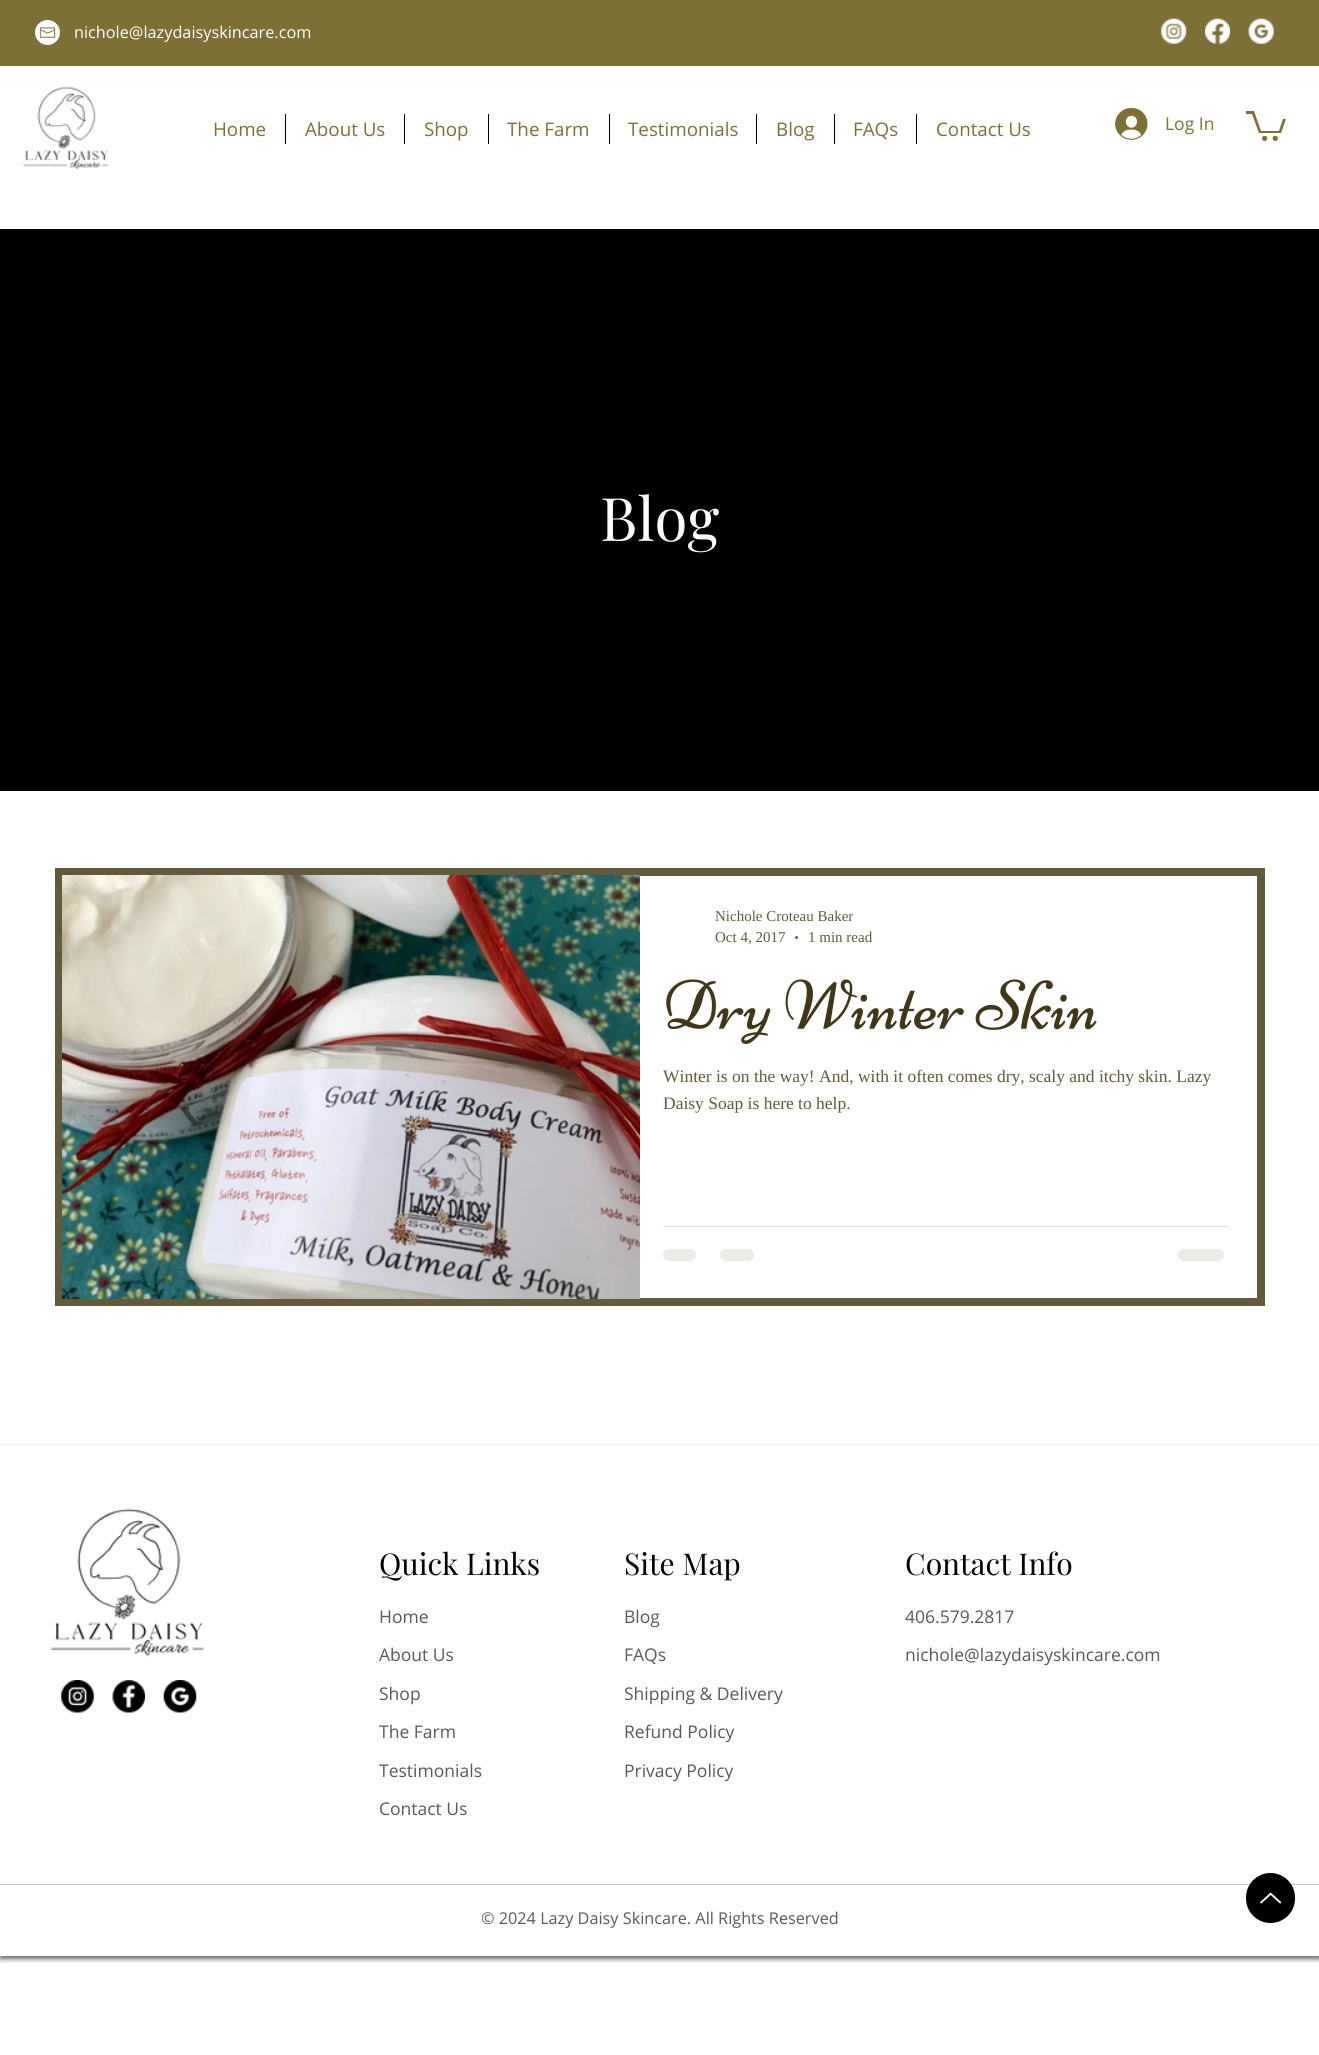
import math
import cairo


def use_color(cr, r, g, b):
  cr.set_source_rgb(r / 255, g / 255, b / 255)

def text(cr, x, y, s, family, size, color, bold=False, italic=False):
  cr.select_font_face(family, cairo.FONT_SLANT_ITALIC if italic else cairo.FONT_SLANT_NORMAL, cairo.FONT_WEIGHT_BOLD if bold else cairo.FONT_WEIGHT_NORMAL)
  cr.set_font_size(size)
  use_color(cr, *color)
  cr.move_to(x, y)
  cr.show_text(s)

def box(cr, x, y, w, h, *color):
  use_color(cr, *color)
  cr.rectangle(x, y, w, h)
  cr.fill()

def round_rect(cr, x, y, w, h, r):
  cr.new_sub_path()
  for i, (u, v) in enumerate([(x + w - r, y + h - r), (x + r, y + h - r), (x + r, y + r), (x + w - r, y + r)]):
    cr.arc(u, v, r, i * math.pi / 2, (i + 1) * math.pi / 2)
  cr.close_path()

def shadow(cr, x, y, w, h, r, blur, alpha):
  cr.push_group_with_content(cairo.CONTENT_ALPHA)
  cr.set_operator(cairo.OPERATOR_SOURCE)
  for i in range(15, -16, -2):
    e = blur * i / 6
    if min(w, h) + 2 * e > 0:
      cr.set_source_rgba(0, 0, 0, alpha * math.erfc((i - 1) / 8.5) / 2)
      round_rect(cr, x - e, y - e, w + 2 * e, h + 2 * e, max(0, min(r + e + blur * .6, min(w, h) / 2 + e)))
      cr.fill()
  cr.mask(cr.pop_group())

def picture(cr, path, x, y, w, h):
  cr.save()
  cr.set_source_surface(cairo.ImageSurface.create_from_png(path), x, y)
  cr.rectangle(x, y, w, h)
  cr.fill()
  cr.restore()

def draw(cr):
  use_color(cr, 255, 255, 255)
  cr.paint()
  box(cr, 0, 0, 1319, 66, 126, 111, 55)
  picture(cr, "img_01.png", 35, 20, 25, 25)
  picture(cr, "img_02.png", 1161, 18, 26, 26)
  picture(cr, "img_03.png", 1205, 18, 25, 26)
  picture(cr, "img_04.png", 1248, 18, 26, 26)
  picture(cr, "img_05.png", 22, 86, 87, 83)
  box(cr, 285, 114, 1, 30, 0, 0, 0)
  box(cr, 404, 114, 1, 30, 0, 0, 0)
  box(cr, 488, 114, 1, 30, 0, 0, 0)
  box(cr, 609, 114, 1, 30, 0, 0, 0)
  box(cr, 756, 114, 1, 30, 0, 0, 0)
  box(cr, 834, 114, 1, 30, 0, 0, 0)
  box(cr, 916, 114, 1, 30, 0, 0, 0)
  picture(cr, "img_06.png", 1115, 108, 33, 32)
  use_color(cr, 126, 111, 55)
  cr.new_path()
  cr.move_to(1286, 119)
  cr.line_to(1281, 133)
  cr.line_to(1259, 133)
  cr.line_to(1252, 114)
  cr.line_to(1246, 114)
  cr.line_to(1246, 111)
  cr.line_to(1254, 111)
  cr.line_to(1261, 131)
  cr.line_to(1279, 131)
  cr.line_to(1283, 119)
  cr.fill()
  cr.arc(1275.3, 138.4, 2.6, 0, 2 * math.pi)
  cr.fill()
  cr.arc(1264.6, 138.4, 2.6, 0, 2 * math.pi)
  cr.fill()
  box(cr, 0, 229, 1319, 562, 0, 0, 0)
  cr.rectangle(59, 872, 1202, 430)
  use_color(cr, 97, 90, 60)
  cr.set_line_width(8)
  cr.stroke()
  picture(cr, "img_07.png", 62, 875, 578, 424)
  cr.arc(796.5, 937.5, 1.5, 0, 2 * math.pi)
  cr.fill()
  picture(cr, "img_08.png", 666, 979, 431, 65)
  box(cr, 663, 1226, 565, 1, 223, 222, 216)
  use_color(cr, 236, 235, 232)
  round_rect(cr, 663, 1249, 33, 12, 6)
  cr.fill()
  round_rect(cr, 720, 1249, 34, 12, 6)
  cr.fill()
  round_rect(cr, 1178, 1249, 46, 12, 6)
  cr.fill()
  cr.save()
  cr.set_fill_rule(cairo.FILL_RULE_EVEN_ODD)
  cr.new_path()
  cr.move_to(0, 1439)
  cr.line_to(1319, 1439)
  cr.line_to(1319, 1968)
  cr.line_to(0, 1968)
  cr.close_path()
  cr.move_to(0, 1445)
  cr.line_to(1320, 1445)
  cr.line_to(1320, 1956)
  cr.line_to(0, 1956)
  cr.close_path()
  cr.clip()
  use_color(cr, 0, 0, 0)
  shadow(cr, 0, 1448, 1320, 511, 0, 2.5, 0.6)
  cr.restore()
  picture(cr, "img_09.png", 51, 1508, 153, 149)
  picture(cr, "img_10.png", 61, 1680, 33, 33)
  picture(cr, "img_11.png", 112, 1680, 33, 33)
  picture(cr, "img_12.png", 163, 1680, 34, 33)
  box(cr, 0, 1884, 1319, 1, 191, 191, 191)
  use_color(cr, 0, 0, 0)
  round_rect(cr, 1246, 1873, 49, 50, 24.5)
  cr.fill()
  picture(cr, "img_13.png", 1260, 1892, 22, 12)
  text(cr, 74, 38, "nichole@lazydaisyskincare.com", "Open Sans", 16.25, (255, 255, 255))
  text(cr, 213, 136, "Home", "Open Sans", 18.75, (126, 111, 55))
  text(cr, 305, 136, "About Us", "Open Sans", 18.75, (126, 111, 55))
  text(cr, 424, 136, "Shop", "Open Sans", 18.75, (126, 111, 55))
  text(cr, 507, 136, "The Farm", "Open Sans", 18.75, (126, 111, 55))
  text(cr, 628, 136, "Testimonials", "Open Sans", 18.75, (126, 111, 55))
  text(cr, 776, 136, "Blog", "Open Sans", 18.75, (126, 111, 55))
  text(cr, 853, 136, "FAQs", "Open Sans", 18.75, (126, 111, 55))
  text(cr, 936, 136, "Contact Us", "Open Sans", 18.75, (126, 111, 55))
  text(cr, 1165, 130, "Log In", "Open Sans", 17.5, (126, 111, 55))
  text(cr, 600, 541, "Blog", "Playfair Display", 60, (255, 255, 255))
  text(cr, 715, 921, "Nichole Croteau Baker", "Liberation Serif", 15, (97, 90, 60))
  text(cr, 715, 942, "Oct 4, 2017", "Liberation Serif", 15, (97, 90, 60))
  text(cr, 808, 942, "1 min read", "Liberation Serif", 15, (97, 90, 60))
  text(cr, 663, 1082, "Winter is on the way! And, with it often comes dry, scaly and itchy skin. Lazy", "Liberation Serif", 17.5, (97, 90, 60))
  text(cr, 663, 1109, "Daisy Soap is here to help.", "Liberation Serif", 17.5, (97, 90, 60))
  text(cr, 379, 1575, "Quick Links", "Playfair Display", 30, (0, 0, 0))
  text(cr, 379, 1623, "Home", "Open Sans", 17.5, (89, 89, 89))
  text(cr, 379, 1661, "About Us", "Open Sans", 17.5, (89, 89, 89))
  text(cr, 379, 1700, "Shop", "Open Sans", 17.5, (89, 89, 89))
  text(cr, 379, 1738, "The Farm", "Open Sans", 17.5, (89, 89, 89))
  text(cr, 379, 1777, "Testimonials", "Open Sans", 17.5, (89, 89, 89))
  text(cr, 379, 1815, "Contact Us", "Open Sans", 17.5, (89, 89, 89))
  text(cr, 624, 1575, "Site Map", "Playfair Display", 30, (0, 0, 0))
  text(cr, 624, 1623, "Blog", "Open Sans", 17.5, (89, 89, 89))
  text(cr, 624, 1661, "FAQs", "Open Sans", 17.5, (89, 89, 89))
  text(cr, 624, 1700, "Shipping & Delivery", "Open Sans", 17.5, (89, 89, 89))
  text(cr, 624, 1738, "Refund Policy", "Open Sans", 17.5, (89, 89, 89))
  text(cr, 624, 1777, "Privacy Policy", "Open Sans", 17.5, (89, 89, 89))
  text(cr, 905, 1575, "Contact Info", "Playfair Display", 30, (0, 0, 0))
  text(cr, 905, 1623, "406.579.2817", "Open Sans", 17.5, (89, 89, 89))
  text(cr, 905, 1661, "nichole@lazydaisyskincare.com", "Open Sans", 17.5, (89, 89, 89))
  text(cr, 481, 1924, "© 2024 Lazy Daisy Skincare. All Rights Reserved", "Open Sans", 16.25, (89, 89, 89))


surface = cairo.ImageSurface(cairo.FORMAT_RGB24, 1319, 2055)
cr = cairo.Context(surface)
options = cairo.FontOptions()
options.set_hint_metrics(cairo.HINT_METRICS_OFF)
options.set_hint_style(cairo.HINT_STYLE_NONE)
cr.set_font_options(options)
cr.set_miter_limit(4)
draw(cr)
surface.write_to_png("out.png")
